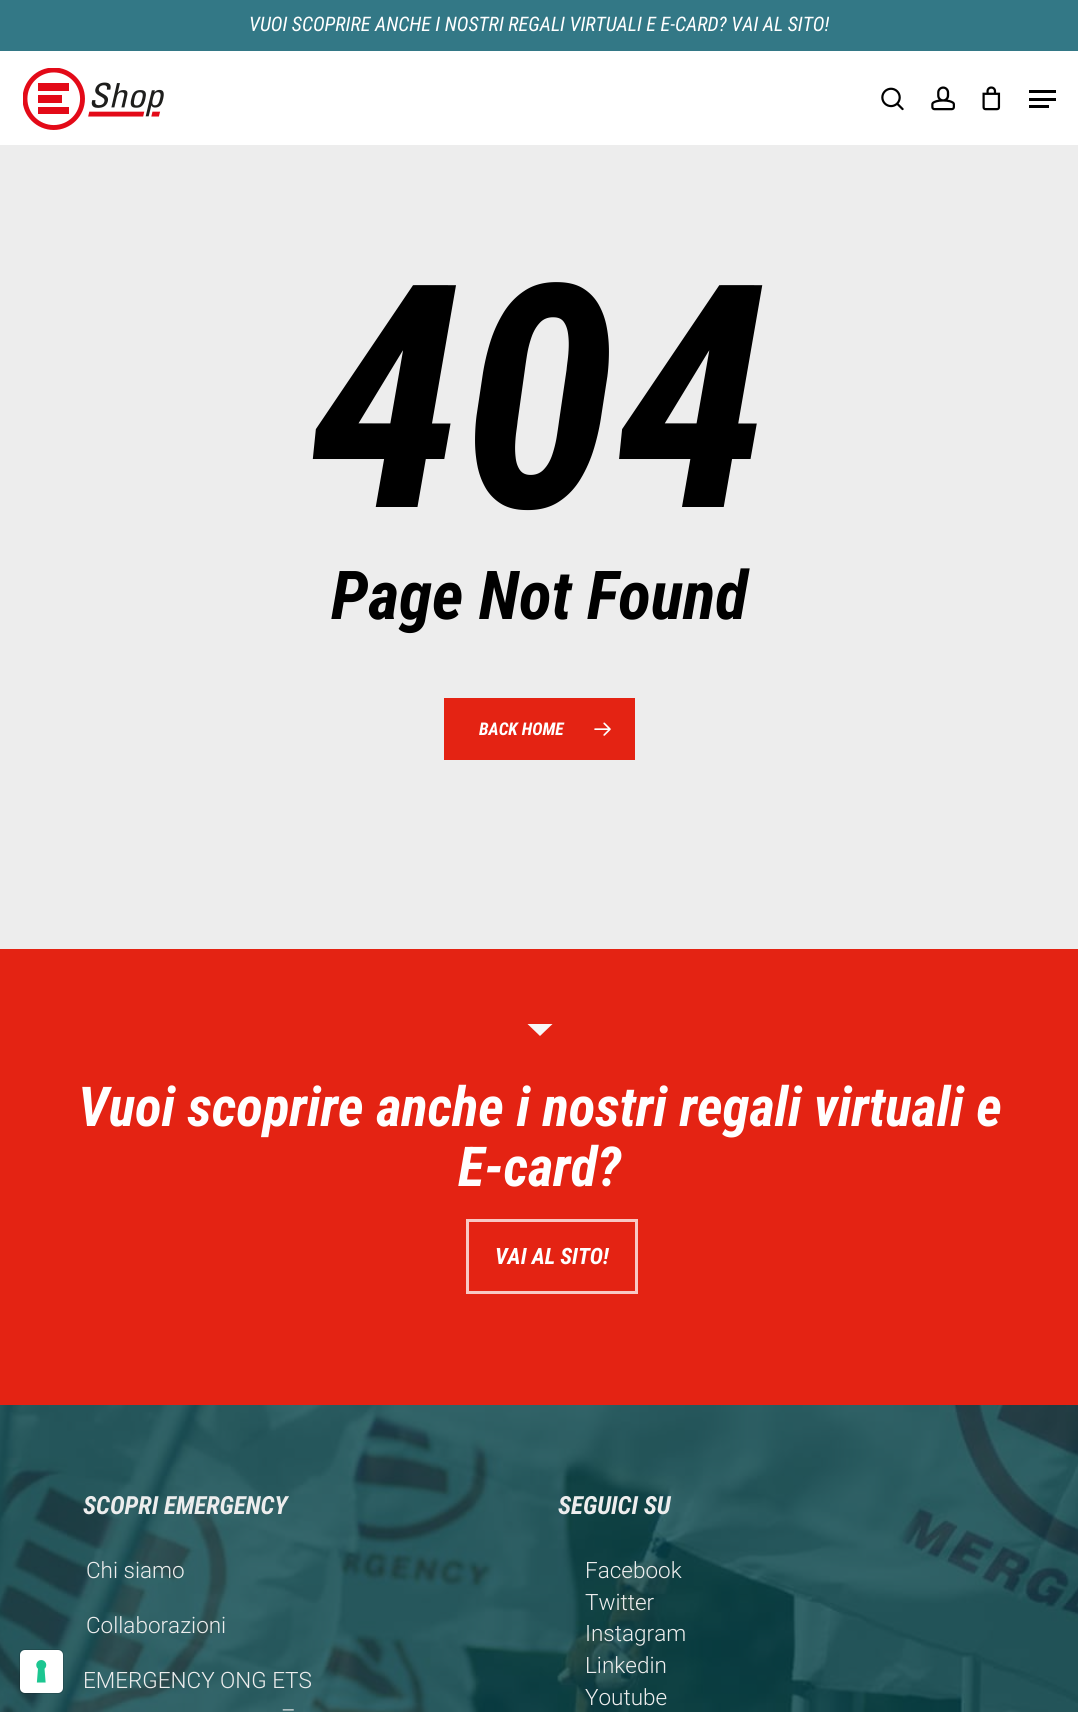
import math
import cairo


def use_color(cr, r, g, b):
  cr.set_source_rgb(r / 255, g / 255, b / 255)

def text(cr, x, y, s, family, size, color, bold=False, italic=False):
  cr.select_font_face(family, cairo.FONT_SLANT_ITALIC if italic else cairo.FONT_SLANT_NORMAL, cairo.FONT_WEIGHT_BOLD if bold else cairo.FONT_WEIGHT_NORMAL)
  cr.set_font_size(size)
  use_color(cr, *color)
  cr.move_to(x, y)
  cr.show_text(s)

def box(cr, x, y, w, h, *color):
  use_color(cr, *color)
  cr.rectangle(x, y, w, h)
  cr.fill()

def round_rect(cr, x, y, w, h, r):
  cr.new_sub_path()
  for i, (u, v) in enumerate([(x + w - r, y + h - r), (x + r, y + h - r), (x + r, y + r), (x + w - r, y + r)]):
    cr.arc(u, v, r, i * math.pi / 2, (i + 1) * math.pi / 2)
  cr.close_path()

def picture(cr, path, x, y, w, h):
  cr.save()
  cr.set_source_surface(cairo.ImageSurface.create_from_png(path), x, y)
  cr.rectangle(x, y, w, h)
  cr.fill()
  cr.restore()

def draw(cr):
  use_color(cr, 255, 255, 255)
  cr.paint()
  picture(cr, "img_07.png", 0, 1405, 1078, 307)
  round_rect(cr, 19.5, 1649.5, 44, 44, 5.5)
  cr.set_source_rgba(0, 0, 0, 0.15)
  cr.set_line_width(1)
  cr.stroke()
  use_color(cr, 255, 255, 255)
  round_rect(cr, 20, 1650, 43, 43, 5)
  cr.fill()
  picture(cr, "img_01.png", 36, 1660, 11, 23)
  box(cr, 0, 0, 1078, 51, 51, 120, 134)
  picture(cr, "img_02.png", 23, 68, 141, 62)
  picture(cr, "img_03.png", 881, 87, 23, 24)
  picture(cr, "img_04.png", 931, 86, 24, 25)
  picture(cr, "img_05.png", 982, 86, 19, 25)
  box(cr, 1029, 90, 27, 3, 0, 0, 0)
  box(cr, 1029, 105, 20, 3, 0, 0, 0)
  box(cr, 1029, 98, 27, 3, 0, 0, 0)
  box(cr, 0, 145, 1078, 804, 237, 237, 237)
  box(cr, 444, 698, 191, 62, 228, 35, 19)
  picture(cr, "img_06.png", 594, 722, 17, 14)
  box(cr, 0, 949, 1078, 456, 228, 35, 19)
  use_color(cr, 248, 248, 248)
  cr.new_path()
  cr.move_to(527.5, 1024)
  cr.line_to(552.5, 1024)
  cr.line_to(540, 1036)
  cr.close_path()
  cr.fill()
  cr.rectangle(467.5, 1220.5, 169, 72)
  use_color(cr, 248, 200, 196)
  cr.set_line_width(3)
  cr.stroke()
  text(cr, 249, 31, "VUOI SCOPRIRE ANCHE I NOSTRI REGALI VIRTUALI E E-CARD? VAI AL SITO!", "Roboto Condensed", 20, (255, 255, 255), italic=True)
  text(cr, 309, 507, "404", "Roboto Condensed", 312, (0, 0, 0), bold=True, italic=True)
  text(cr, 331, 619, "Page Not Found", "Roboto Condensed", 67.5, (0, 0, 0), bold=True, italic=True)
  text(cr, 479, 735, "BACK HOME", "Roboto Condensed", 17.5, (255, 255, 255), bold=True, italic=True)
  text(cr, 78, 1126, "Vuoi scoprire anche i nostri regali virtuali e", "Roboto Condensed", 55, (255, 255, 255), bold=True, italic=True)
  text(cr, 458, 1186, "E-card?", "Roboto Condensed", 55, (255, 255, 255), bold=True, italic=True)
  text(cr, 495, 1264, "VAI AL SITO!", "Roboto Condensed", 22.5, (255, 255, 255), bold=True, italic=True)
  text(cr, 83, 1514, "SCOPRI EMERGENCY", "Roboto Condensed", 25, (237, 237, 237), bold=True, italic=True)
  text(cr, 86, 1578, "Chi siamo", "Roboto Light", 22.5, (237, 237, 237))
  text(cr, 86, 1633, "Collaborazioni", "Roboto Light", 22.5, (237, 237, 237))
  text(cr, 83, 1688, "EMERGENCY ONG ETS", "Roboto Light", 22.5, (237, 237, 237))
  text(cr, 281, 1718, "–", "Roboto Light", 22.5, (237, 237, 237))
  text(cr, 558, 1514, "SEGUICI SU", "Roboto Condensed", 25, (237, 237, 237), bold=True, italic=True)
  text(cr, 585, 1578, "Facebook", "Roboto Light", 22.5, (237, 237, 237))
  text(cr, 585, 1610, "Twitter", "Roboto Light", 22.5, (237, 237, 237))
  text(cr, 585, 1641, "Instagram", "Roboto Light", 22.5, (237, 237, 237))
  text(cr, 585, 1673, "Linkedin", "Roboto Light", 22.5, (237, 237, 237))
  text(cr, 585, 1705, "Youtube", "Roboto Light", 22.5, (237, 237, 237))


surface = cairo.ImageSurface(cairo.FORMAT_RGB24, 1078, 1712)
cr = cairo.Context(surface)
options = cairo.FontOptions()
options.set_hint_metrics(cairo.HINT_METRICS_OFF)
options.set_hint_style(cairo.HINT_STYLE_NONE)
cr.set_font_options(options)
cr.set_miter_limit(4)
draw(cr)
surface.write_to_png("out.png")
